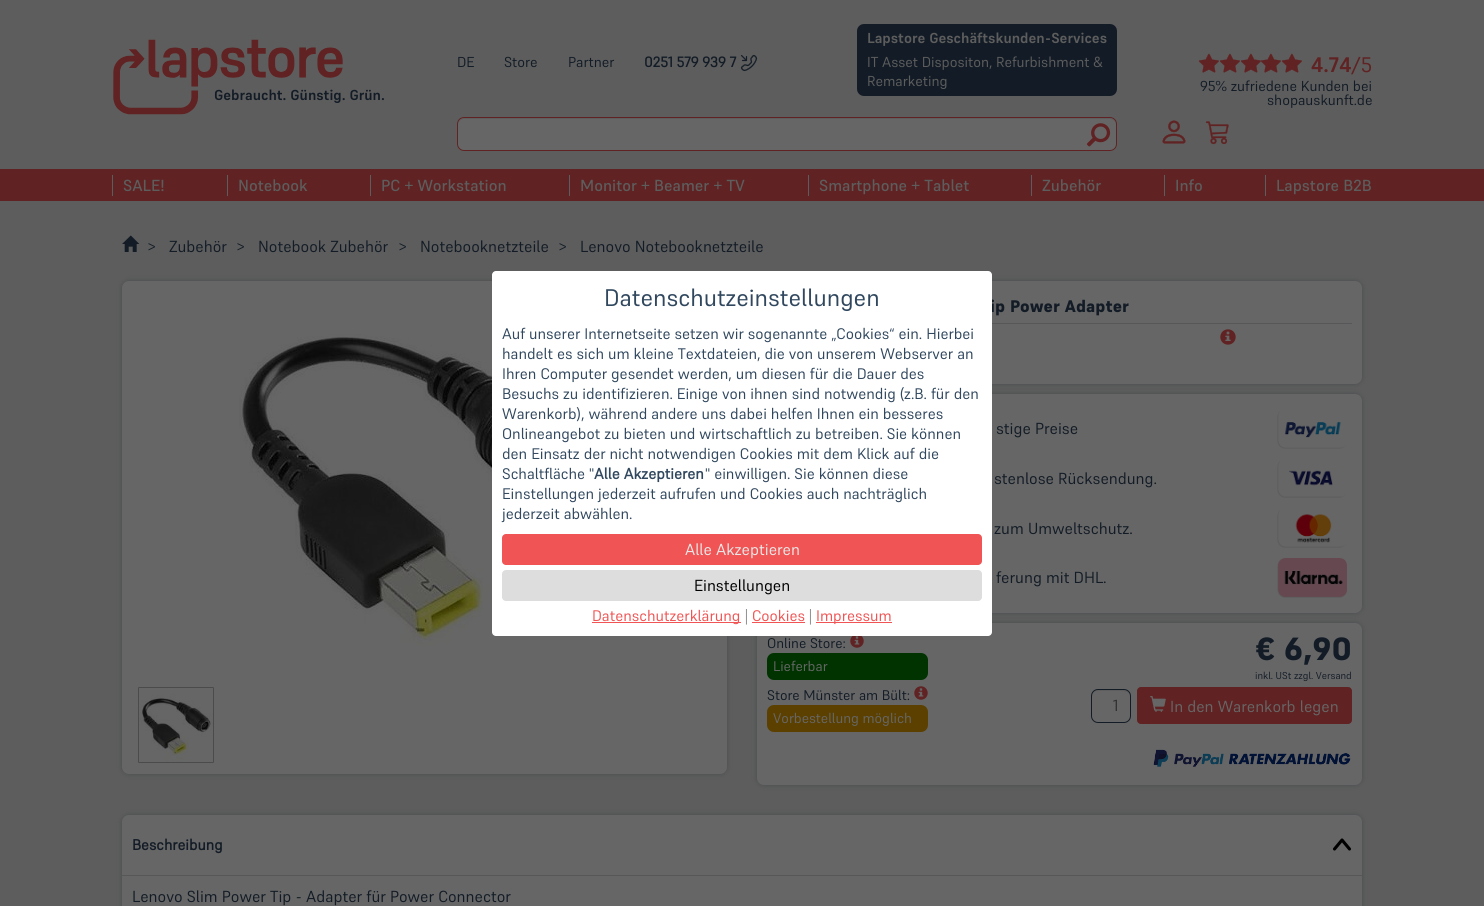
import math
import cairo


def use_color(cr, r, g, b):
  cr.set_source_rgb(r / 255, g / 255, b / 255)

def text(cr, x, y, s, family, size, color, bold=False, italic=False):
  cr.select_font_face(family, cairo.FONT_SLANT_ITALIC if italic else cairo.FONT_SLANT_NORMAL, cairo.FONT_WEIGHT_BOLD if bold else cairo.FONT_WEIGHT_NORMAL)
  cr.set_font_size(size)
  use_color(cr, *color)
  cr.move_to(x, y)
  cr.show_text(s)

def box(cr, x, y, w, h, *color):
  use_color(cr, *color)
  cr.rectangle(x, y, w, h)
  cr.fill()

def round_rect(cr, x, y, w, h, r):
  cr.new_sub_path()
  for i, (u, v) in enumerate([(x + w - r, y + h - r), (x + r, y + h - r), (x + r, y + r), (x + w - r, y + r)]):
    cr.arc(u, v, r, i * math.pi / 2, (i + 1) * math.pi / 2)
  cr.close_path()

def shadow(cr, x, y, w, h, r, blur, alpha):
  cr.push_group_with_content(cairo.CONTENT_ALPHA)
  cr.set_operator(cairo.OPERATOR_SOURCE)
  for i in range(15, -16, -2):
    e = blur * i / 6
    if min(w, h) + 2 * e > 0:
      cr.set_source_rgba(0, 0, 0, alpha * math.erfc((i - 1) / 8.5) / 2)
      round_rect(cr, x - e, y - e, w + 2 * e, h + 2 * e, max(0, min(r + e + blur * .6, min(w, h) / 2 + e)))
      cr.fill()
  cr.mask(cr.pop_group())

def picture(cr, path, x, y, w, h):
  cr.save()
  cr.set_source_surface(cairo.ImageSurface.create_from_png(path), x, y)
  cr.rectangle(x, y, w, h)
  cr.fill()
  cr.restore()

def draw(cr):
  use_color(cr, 93, 93, 93)
  cr.paint()
  picture(cr, "img_01.png", 113, 39, 230, 76)
  picture(cr, "img_02.png", 740, 54, 18, 18)
  use_color(cr, 19, 28, 38)
  round_rect(cr, 857, 24, 260, 72, 7)
  cr.fill()
  use_color(cr, 102, 102, 102)
  round_rect(cr, 457, 117, 660, 34, 7)
  cr.fill()
  use_color(cr, 94, 94, 94)
  cr.new_path()
  cr.move_to(464, 119)
  cr.line_to(1110, 119)
  cr.curve_to(1113, 119, 1116, 122, 1116, 125)
  cr.line_to(1116, 124)
  cr.curve_to(1116, 121, 1113, 118, 1110, 118)
  cr.line_to(464, 118)
  cr.curve_to(461, 118, 458, 121, 458, 124)
  cr.line_to(458, 125)
  cr.curve_to(458, 122, 461, 119, 464, 119)
  cr.close_path()
  cr.fill()
  round_rect(cr, 457.5, 117.5, 659, 33, 6.5)
  use_color(cr, 96, 34, 34)
  cr.set_line_width(1)
  cr.stroke()
  picture(cr, "img_03.png", 1086, 123, 25, 24)
  picture(cr, "img_04.png", 1198, 53, 21, 20)
  picture(cr, "img_04.png", 1219, 53, 21, 20)
  picture(cr, "img_04.png", 1240, 53, 21, 20)
  picture(cr, "img_05.png", 1261, 53, 20, 20)
  picture(cr, "img_04.png", 1281, 53, 21, 20)
  picture(cr, "img_06.png", 1162, 120, 24, 24)
  picture(cr, "img_07.png", 1205, 121, 24, 24)
  box(cr, 0, 169, 1484, 32, 96, 34, 34)
  box(cr, 112, 175, 1, 21, 93, 93, 93)
  box(cr, 227, 175, 1, 21, 93, 93, 93)
  box(cr, 370, 175, 1, 21, 93, 93, 93)
  box(cr, 569, 175, 1, 21, 93, 93, 93)
  box(cr, 808, 175, 1, 21, 93, 93, 93)
  box(cr, 1031, 175, 1, 21, 93, 93, 93)
  box(cr, 1164, 175, 1, 21, 93, 93, 93)
  box(cr, 1265, 175, 1, 21, 93, 93, 93)
  picture(cr, "img_08.png", 122, 235, 18, 17)
  use_color(cr, 52, 58, 63)
  shadow(cr, 122, 281, 605, 493, 7, 2.5, 0.53)
  use_color(cr, 102, 102, 102)
  round_rect(cr, 122, 281, 605, 493, 7)
  cr.fill()
  picture(cr, "img_09.png", 239, 334, 376, 312)
  round_rect(cr, 138.5, 687.5, 75, 75, 0.5)
  use_color(cr, 75, 75, 75)
  cr.stroke()
  picture(cr, "img_10.png", 139, 694, 74, 68)
  use_color(cr, 52, 58, 63)
  shadow(cr, 757, 281, 605, 103, 7, 2.5, 0.53)
  use_color(cr, 102, 102, 102)
  round_rect(cr, 757, 281, 605, 103, 7)
  cr.fill()
  box(cr, 992, 323, 360, 1, 86, 87, 89)
  picture(cr, "img_11.png", 1220, 329, 16, 16)
  use_color(cr, 52, 58, 63)
  shadow(cr, 757, 394, 605, 219, 7, 2.5, 0.53)
  use_color(cr, 102, 102, 102)
  round_rect(cr, 757, 394, 605, 219, 7)
  cr.fill()
  picture(cr, "img_12.png", 1277, 411, 69, 38)
  picture(cr, "img_13.png", 1277, 461, 69, 37)
  picture(cr, "img_14.png", 1277, 510, 69, 38)
  picture(cr, "img_15.png", 1277, 558, 70, 40)
  use_color(cr, 52, 58, 63)
  shadow(cr, 757, 623, 605, 162, 7, 2.5, 0.53)
  use_color(cr, 102, 102, 102)
  round_rect(cr, 757, 623, 605, 162, 7)
  cr.fill()
  picture(cr, "img_16.png", 850, 636, 14, 12)
  use_color(cr, 0, 51, 0)
  round_rect(cr, 767, 653, 161, 27, 7)
  cr.fill()
  picture(cr, "img_17.png", 914, 686, 14, 14)
  use_color(cr, 91, 64, 0)
  round_rect(cr, 767, 705, 161, 27, 7)
  cr.fill()
  use_color(cr, 94, 94, 94)
  cr.set_fill_rule(cairo.FILL_RULE_EVEN_ODD)
  cr.new_path()
  cr.move_to(1098, 691)
  cr.line_to(1120, 691)
  cr.curve_to(1126.5, 691, 1129, 692.5, 1130, 695)
  cr.curve_to(1129.5, 692, 1127, 690, 1124, 690)
  cr.line_to(1098, 690)
  cr.curve_to(1094.5, 690, 1092, 692.5, 1092, 696)
  cr.line_to(1092, 700)
  cr.curve_to(1092, 696, 1092, 691, 1098, 691)
  cr.close_path()
  cr.move_to(1092, 717.5)
  cr.line_to(1092, 714)
  cr.close_path()
  cr.fill()
  round_rect(cr, 1091.5, 689.5, 39, 33, 6.5)
  use_color(cr, 19, 28, 38)
  cr.stroke()
  use_color(cr, 96, 34, 34)
  round_rect(cr, 1137.5, 687.5, 214, 36, 3.5)
  cr.fill_preserve()
  cr.stroke()
  picture(cr, "img_18.png", 1150, 696, 16, 16)
  picture(cr, "img_19.png", 1153, 749, 198, 18)
  use_color(cr, 52, 58, 63)
  shadow(cr, 122, 815, 1240, 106, 7, 2.5, 0.53)
  use_color(cr, 102, 102, 102)
  cr.new_path()
  cr.move_to(129, 815)
  cr.line_to(1355, 815)
  cr.curve_to(1359, 815, 1362, 818, 1362, 822)
  cr.line_to(1362, 876)
  cr.line_to(122, 876)
  cr.line_to(122, 822)
  cr.curve_to(122, 818, 125, 815, 129, 815)
  cr.close_path()
  cr.fill()
  box(cr, 122, 875, 1240, 1, 86, 87, 89)
  cr.new_path()
  cr.move_to(1334.5, 849)
  cr.line_to(1342, 840)
  cr.line_to(1349.5, 849)
  use_color(cr, 0, 0, 0)
  cr.set_line_width(3.1)
  cr.set_line_cap(cairo.LINE_CAP_ROUND)
  cr.set_line_join(cairo.LINE_JOIN_ROUND)
  cr.stroke()
  box(cr, 122, 876, 1240, 30, 102, 102, 102)
  text(cr, 214, 100, "Gebraucht. Günstig. Grün.", "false", 14.4, (19, 28, 38), bold=True)
  text(cr, 457, 67, "DE", "false", 14.4, (19, 28, 38))
  text(cr, 504, 67, "Store", "false", 14.4, (19, 28, 38))
  text(cr, 568, 67, "Partner", "false", 14.4, (19, 28, 38))
  text(cr, 644, 67, "0251 579 939 7", "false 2", 14.4, (19, 28, 38), bold=True)
  text(cr, 867, 43, "Lapstore Geschäftskunden-Services", "false", 14.4, (93, 93, 93), bold=True)
  text(cr, 867, 67, "IT Asset Dispositon, Refurbishment &", "false", 14.4, (93, 93, 93))
  text(cr, 867, 86, "Remarketing", "false", 14.4, (93, 93, 93))
  text(cr, 1311, 72, "4.74", "false", 21, (96, 34, 34), bold=True)
  text(cr, 1351, 72, "/5", "false", 21, (96, 34, 34))
  text(cr, 1200, 91, "95% zufriedene Kunden bei", "false", 14.4, (19, 28, 38))
  text(cr, 1267, 105, "shopauskunft.de", "false", 14.4, (19, 28, 38))
  text(cr, 123, 191, "SALE!", "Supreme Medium", 16, (93, 93, 93))
  text(cr, 238, 191, "Notebook", "Supreme Medium", 16, (93, 93, 93))
  text(cr, 381, 191, "PC + Workstation", "Supreme Medium", 16, (93, 93, 93))
  text(cr, 580, 191, "Monitor + Beamer + TV", "Supreme Medium", 16, (93, 93, 93))
  text(cr, 819, 191, "Smartphone + Tablet", "Supreme Medium", 16, (93, 93, 93))
  text(cr, 1042, 191, "Zubehör", "Supreme Medium", 16, (93, 93, 93))
  text(cr, 1175, 191, "Info", "Supreme Medium", 16, (93, 93, 93))
  text(cr, 1276, 191, "Lapstore B2B", "Supreme Medium", 16, (93, 93, 93))
  text(cr, 147, 252, ">", "false", 16, (19, 28, 38))
  text(cr, 169, 252, "Zubehör", "false", 16, (19, 28, 38))
  text(cr, 236, 252, ">", "false", 16, (19, 28, 38))
  text(cr, 258, 252, "Notebook Zubehör", "false", 16, (19, 28, 38))
  text(cr, 398, 252, ">", "false", 16, (19, 28, 38))
  text(cr, 420, 252, "Notebooknetzteile", "false", 16, (19, 28, 38))
  text(cr, 558, 252, ">", "false", 16, (19, 28, 38))
  text(cr, 580, 252, "Lenovo Notebooknetzteile", "false", 16, (19, 28, 38))
  text(cr, 990, 312, "ip Power Adapter", "Supreme ExtraBold", 16.75, (19, 28, 38))
  text(cr, 996, 434, "stige Preise", "false", 16, (19, 28, 38))
  text(cr, 994, 484, "stenlose Rücksendung.", "false", 16, (19, 28, 38))
  text(cr, 994, 534, "zum Umweltschutz.", "false", 16, (19, 28, 38))
  text(cr, 996, 583, "ferung mit DHL.", "false", 16, (19, 28, 38))
  text(cr, 767, 648, "Online Store:", "false", 14, (19, 28, 38))
  text(cr, 773, 671, "Lieferbar", "false", 14, (102, 102, 102))
  text(cr, 767, 700, "Store Münster am Bült:", "false", 14, (19, 28, 38))
  text(cr, 773, 723, "Vorbestellung möglich", "false", 14, (102, 102, 102))
  text(cr, 1255, 660, "€ 6,90", "Supreme ExtraBold", 32, (19, 28, 38))
  text(cr, 1255, 679, "inkl. USt zzgl. Versand", "false", 10, (19, 28, 38))
  text(cr, 1113, 711, "1", "false", 16, (47, 47, 47))
  text(cr, 1170, 712, "In den Warenkorb legen", "false", 16, (102, 102, 102))
  text(cr, 132, 850, "Beschreibung", "false 2", 15, (19, 28, 38), bold=True)
  text(cr, 132, 902, "Lenovo Slim Power Tip - Adapter für Power Connector", "false", 16, (19, 28, 38))
  use_color(cr, 255, 255, 255)
  round_rect(cr, 492, 271, 500, 365, 4)
  cr.fill()
  text(cr, 604, 306, "Datenschutzeinstellungen", "false", 24, (48, 71, 94))
  text(cr, 502, 339, "Auf unserer Internetseite setzen wir sogenannte „Cookies“ ein. Hierbei", "false", 15.3, (48, 71, 94))
  text(cr, 502, 359, "handelt es sich um kleine Textdateien, die von unserem Webserver an", "false", 15.3, (48, 71, 94))
  text(cr, 502, 379, "Ihren Computer gesendet werden, um diesen für die Dauer des", "false", 15.3, (48, 71, 94))
  text(cr, 502, 399, "Besuchs zu identifizieren. Einige von ihnen sind notwendig (z.B. für den", "false", 15.3, (48, 71, 94))
  text(cr, 502, 419, "Warenkorb), während andere uns dabei helfen Ihnen ein besseres", "false", 15.3, (48, 71, 94))
  text(cr, 502, 439, "Onlineangebot zu bieten und wirtschaftlich zu betreiben. Sie können", "false", 15.3, (48, 71, 94))
  text(cr, 502, 459, "den Einsatz der nicht notwendigen Cookies mit dem Klick auf die", "false", 15.3, (48, 71, 94))
  text(cr, 502, 479, "Schaltfläche \"", "false", 15.3, (48, 71, 94))
  text(cr, 594, 479, "Alle Akzeptieren", "false 2", 15.3, (48, 71, 94), bold=True)
  text(cr, 705, 479, "\" einwilligen. Sie können diese", "false", 15.3, (48, 71, 94))
  text(cr, 502, 499, "Einstellungen jederzeit aufrufen und Cookies auch nachträglich", "false", 15.3, (48, 71, 94))
  text(cr, 502, 519, "jederzeit abwählen.", "false", 15.3, (48, 71, 94))
  use_color(cr, 240, 84, 84)
  round_rect(cr, 502, 534, 480, 31, 4)
  cr.fill()
  text(cr, 685, 555, "Alle Akzeptieren", "false", 16, (232, 232, 232))
  use_color(cr, 221, 221, 221)
  round_rect(cr, 502, 570, 480, 31, 4)
  cr.fill()
  text(cr, 694, 591, "Einstellungen", "false", 16, (0, 0, 0))
  box(cr, 592, 622, 149, 1, 240, 84, 84)
  text(cr, 592, 621, "Datenschutzerklärung", "false", 15.3, (240, 84, 84))
  text(cr, 745, 621, "|", "false", 15.3, (141, 141, 141))
  text(cr, 752, 621, "Cookies", "false", 15.3, (240, 84, 84))
  box(cr, 752, 622, 53, 1, 240, 84, 84)
  text(cr, 809, 621, "|", "false", 15.3, (141, 141, 141))
  box(cr, 816, 622, 76, 1, 240, 84, 84)
  text(cr, 816, 621, "Impressum", "false", 15.3, (240, 84, 84))


surface = cairo.ImageSurface(cairo.FORMAT_RGB24, 1484, 906)
cr = cairo.Context(surface)
options = cairo.FontOptions()
options.set_hint_metrics(cairo.HINT_METRICS_OFF)
options.set_hint_style(cairo.HINT_STYLE_NONE)
cr.set_font_options(options)
cr.set_miter_limit(4)
draw(cr)
surface.write_to_png("out.png")
